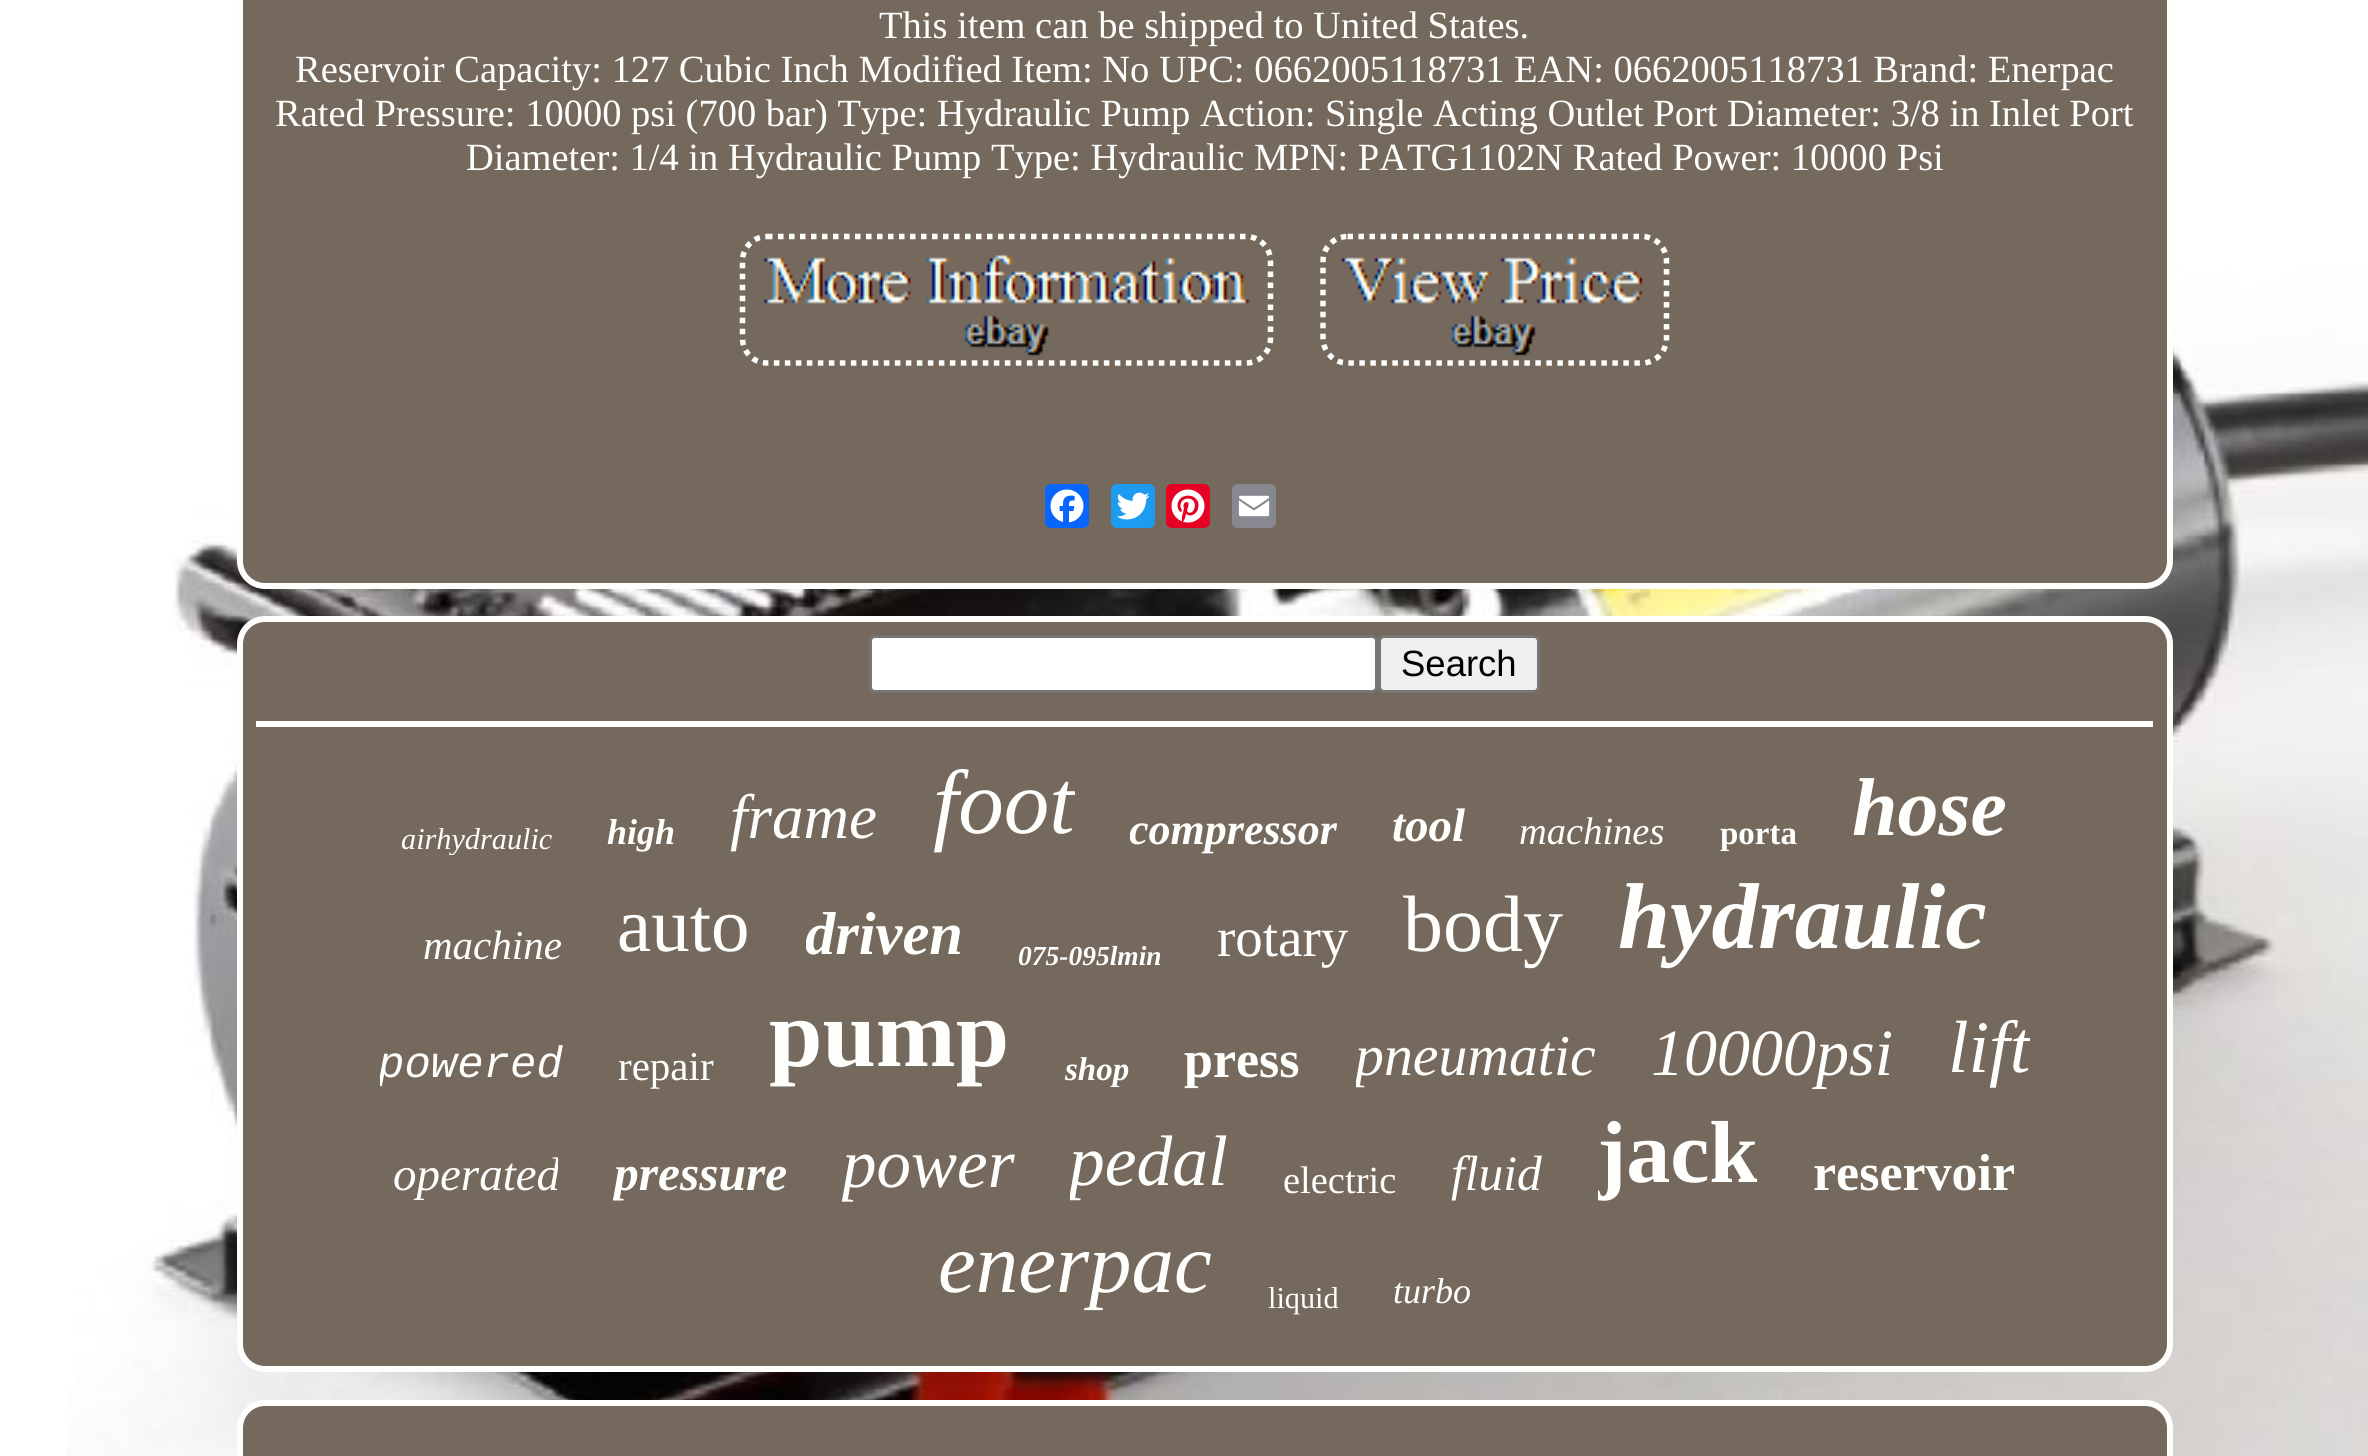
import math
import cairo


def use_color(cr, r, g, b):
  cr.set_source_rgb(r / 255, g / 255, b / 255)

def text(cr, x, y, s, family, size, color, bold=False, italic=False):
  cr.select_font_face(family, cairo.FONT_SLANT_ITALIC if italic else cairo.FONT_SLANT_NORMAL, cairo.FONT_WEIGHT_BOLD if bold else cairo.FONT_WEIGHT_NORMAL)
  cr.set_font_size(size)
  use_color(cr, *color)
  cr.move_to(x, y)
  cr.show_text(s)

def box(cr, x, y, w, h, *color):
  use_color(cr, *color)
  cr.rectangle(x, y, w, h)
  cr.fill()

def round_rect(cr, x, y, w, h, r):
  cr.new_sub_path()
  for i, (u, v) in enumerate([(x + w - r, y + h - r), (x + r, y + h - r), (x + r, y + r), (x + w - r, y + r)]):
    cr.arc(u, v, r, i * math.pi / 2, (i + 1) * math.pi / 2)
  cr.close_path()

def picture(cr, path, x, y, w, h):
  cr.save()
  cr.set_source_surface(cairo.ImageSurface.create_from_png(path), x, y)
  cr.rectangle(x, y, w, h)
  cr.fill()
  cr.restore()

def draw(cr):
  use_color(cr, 255, 255, 255)
  cr.paint()
  picture(cr, "img_01.png", 66, 0, 2302, 1456)
  use_color(cr, 117, 105, 93)
  round_rect(cr, 240, -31, 1930, 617, 25)
  cr.fill_preserve()
  use_color(cr, 254, 254, 252)
  cr.set_line_width(6)
  cr.stroke()
  cr.new_path()
  cr.move_to(767, 236.5)
  cr.line_to(1246, 236.5)
  cr.curve_to(1259.5, 236.5, 1270.5, 247.5, 1270.5, 261)
  cr.line_to(1270.5, 338)
  cr.curve_to(1270.5, 352, 1259.5, 363, 1246, 363)
  cr.line_to(767, 363)
  cr.curve_to(753.5, 363, 742.5, 352, 742.5, 338)
  cr.line_to(742.5, 261)
  cr.curve_to(742.5, 247.5, 753.5, 236.5, 767, 236.5)
  cr.close_path()
  cr.set_line_width(5.5)
  cr.set_dash([5.5, 5.5])
  cr.stroke()
  cr.new_path()
  cr.move_to(1347.5, 236.5)
  cr.line_to(1642, 236.5)
  cr.curve_to(1655.5, 236.5, 1666.5, 247.5, 1666.5, 261)
  cr.line_to(1666.5, 338)
  cr.curve_to(1666.5, 352, 1655.5, 363, 1642, 363)
  cr.line_to(1347.5, 363)
  cr.curve_to(1334, 363, 1323, 352, 1323, 338)
  cr.line_to(1323, 261)
  cr.curve_to(1323, 247.5, 1334, 236.5, 1347.5, 236.5)
  cr.close_path()
  cr.stroke()
  picture(cr, "img_02.png", 763, 255, 487, 101)
  picture(cr, "img_03.png", 1341, 257, 302, 99)
  use_color(cr, 8, 102, 255)
  round_rect(cr, 1045, 484, 44, 44, 6)
  cr.fill()
  picture(cr, "img_04.png", 1050, 489, 34, 34)
  use_color(cr, 29, 155, 240)
  round_rect(cr, 1111, 484, 44, 44, 6)
  cr.fill()
  picture(cr, "img_05.png", 1116, 492, 34, 28)
  use_color(cr, 230, 0, 35)
  round_rect(cr, 1166, 484, 44, 44, 6)
  cr.fill()
  picture(cr, "img_06.png", 1171, 489, 34, 34)
  use_color(cr, 136, 137, 144)
  round_rect(cr, 1232, 484, 44, 44, 6)
  cr.fill()
  picture(cr, "img_07.png", 1238, 495, 32, 22)
  use_color(cr, 117, 105, 93)
  round_rect(cr, 240, 619, 1930, 750, 25)
  cr.fill_preserve()
  use_color(cr, 254, 254, 252)
  cr.set_line_width(6)
  cr.set_dash([])
  cr.stroke()
  use_color(cr, 255, 255, 255)
  round_rect(cr, 870.5, 636.5, 506, 55, 4.5)
  cr.fill_preserve()
  use_color(cr, 118, 118, 118)
  cr.set_line_width(3)
  cr.stroke()
  use_color(cr, 239, 239, 239)
  round_rect(cr, 1379.5, 636.5, 159, 55, 4.5)
  cr.fill_preserve()
  use_color(cr, 118, 118, 118)
  cr.stroke()
  box(cr, 256, 721, 1897, 6, 254, 254, 252)
  use_color(cr, 117, 105, 93)
  round_rect(cr, 240, 1403, 1930, 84, 25)
  cr.fill_preserve()
  use_color(cr, 254, 254, 252)
  cr.set_line_width(6)
  cr.stroke()
  text(cr, 879, 38, "This item can be shipped to United States.", "Liberation Serif", 38.5, (254, 254, 252))
  text(cr, 295, 82, "Reservoir Capacity: 127 Cubic Inch Modified Item: No UPC: 0662005118731 EAN: 0662005118731 Brand: Enerpac", "Liberation Serif", 38.5, (254, 254, 252))
  text(cr, 275, 126, "Rated Pressure: 10000 psi (700 bar) Type: Hydraulic Pump Action: Single Acting Outlet Port Diameter: 3/8 in Inlet Port", "Liberation Serif", 38.5, (254, 254, 252))
  text(cr, 466, 170, "Diameter: 1/4 in Hydraulic Pump Type: Hydraulic MPN: PATG1102N Rated Power: 10000 Psi", "Liberation Serif", 38.5, (254, 254, 252))
  text(cr, 1401, 676, "Search", "Liberation Sans", 36.5, (0, 0, 0))
  cr.save()
  cr.rectangle(402, 822, 151, 33)
  cr.clip()
  text(cr, 401, 849, "airhydraulic", "Liberation Serif", 30.25, (254, 254, 252), italic=True)
  cr.restore()
  text(cr, 607, 844, "high", "Liberation Serif", 36, (254, 254, 252), bold=True, italic=True)
  text(cr, 730, 838, "frame", "Liberation Serif", 63, (254, 254, 252), italic=True)
  cr.save()
  cr.rectangle(932, 754, 143, 101)
  cr.clip()
  text(cr, 933, 833, "foot", "Liberation Serif", 91, (254, 254, 252), italic=True)
  cr.restore()
  cr.save()
  cr.rectangle(1130, 806, 207, 49)
  cr.clip()
  text(cr, 1129, 844, "compressor", "Liberation Serif", 44, (254, 254, 252), bold=True, italic=True)
  cr.restore()
  text(cr, 1392, 841, "tool", "Liberation Serif", 47, (254, 254, 252), bold=True, italic=True)
  text(cr, 1519, 844, "machines", "Liberation Serif", 38.5, (254, 254, 252), italic=True)
  text(cr, 1720, 844, "porta", "Liberation Serif", 33, (254, 254, 252), bold=True)
  text(cr, 1852, 835, "hose", "Liberation Serif", 82, (254, 254, 252), bold=True, italic=True)
  text(cr, 423, 959, "machine", "Liberation Serif", 41, (254, 254, 252), italic=True)
  text(cr, 617, 951, "auto", "Liberation Serif", 77, (254, 254, 252))
  cr.save()
  cr.rectangle(806, 899, 157, 72)
  cr.clip()
  text(cr, 805, 954, "driven", "Liberation Serif", 60.5, (254, 254, 252), bold=True, italic=True)
  cr.restore()
  text(cr, 1018, 965, "075-095lmin", "Liberation Serif", 27.5, (254, 254, 252), bold=True, italic=True)
  text(cr, 1217, 956, "rotary", "Liberation Serif", 55, (254, 254, 252))
  text(cr, 1403, 951, "body", "Liberation Serif", 80, (254, 254, 252))
  text(cr, 1618, 948, "hydraulic", "Liberation Serif", 93.5, (254, 254, 252), bold=True, italic=True)
  cr.save()
  cr.rectangle(380, 1042, 184, 50)
  cr.clip()
  text(cr, 378, 1077, "powered", "Liberation Mono", 44, (254, 254, 252), italic=True)
  cr.restore()
  text(cr, 618, 1080, "repair", "Liberation Serif", 41, (254, 254, 252))
  text(cr, 769, 1066, "pump", "Liberation Serif", 96, (254, 254, 252), bold=True)
  text(cr, 1065, 1080, "shop", "Liberation Serif", 33, (254, 254, 252), bold=True, italic=True)
  text(cr, 1184, 1077, "press", "Liberation Serif", 52, (254, 254, 252), bold=True)
  cr.save()
  cr.rectangle(1356, 1023, 239, 69)
  cr.clip()
  text(cr, 1355, 1075, "pneumatic", "Liberation Serif", 57.75, (254, 254, 252), italic=True)
  cr.restore()
  text(cr, 1651, 1075, "10000psi", "Liberation Serif", 66, (254, 254, 252), italic=True)
  cr.save()
  cr.rectangle(1947, 1007, 83, 85)
  cr.clip()
  text(cr, 1948, 1072, "lift", "Liberation Serif", 74, (254, 254, 252), italic=True)
  cr.restore()
  cr.save()
  cr.rectangle(393, 1150, 165, 55)
  cr.clip()
  text(cr, 393, 1190, "operated", "Liberation Serif", 47, (254, 254, 252), italic=True)
  cr.restore()
  cr.save()
  cr.rectangle(613, 1147, 174, 58)
  cr.clip()
  text(cr, 614, 1190, "pressure", "Liberation Serif", 49.5, (254, 254, 252), bold=True, italic=True)
  cr.restore()
  cr.save()
  cr.rectangle(842, 1128, 173, 77)
  cr.clip()
  text(cr, 842, 1187, "power", "Liberation Serif", 69, (254, 254, 252), italic=True)
  cr.restore()
  cr.save()
  cr.rectangle(1070, 1122, 159, 83)
  cr.clip()
  text(cr, 1069, 1185, "pedal", "Liberation Serif", 71.5, (254, 254, 252), italic=True)
  cr.restore()
  text(cr, 1283, 1193, "electric", "Liberation Serif", 38.5, (254, 254, 252))
  text(cr, 1451, 1190, "fluid", "Liberation Serif", 49.5, (254, 254, 252), italic=True)
  cr.save()
  cr.rectangle(1598, 1103, 159, 102)
  cr.clip()
  text(cr, 1597, 1182, "jack", "Liberation Serif", 88, (254, 254, 252), bold=True)
  cr.restore()
  text(cr, 1813, 1190, "reservoir", "Liberation Serif", 52, (254, 254, 252), bold=True)
  text(cr, 938, 1292, "enerpac", "Liberation Serif", 85, (254, 254, 252), italic=True)
  text(cr, 1268, 1308, "liquid", "Liberation Serif", 30.25, (254, 254, 252))
  text(cr, 1393, 1303, "turbo", "Liberation Serif", 36, (254, 254, 252), italic=True)


surface = cairo.ImageSurface(cairo.FORMAT_RGB24, 2368, 1456)
cr = cairo.Context(surface)
options = cairo.FontOptions()
options.set_hint_metrics(cairo.HINT_METRICS_OFF)
options.set_hint_style(cairo.HINT_STYLE_NONE)
cr.set_font_options(options)
cr.set_miter_limit(4)
draw(cr)
surface.write_to_png("out.png")
